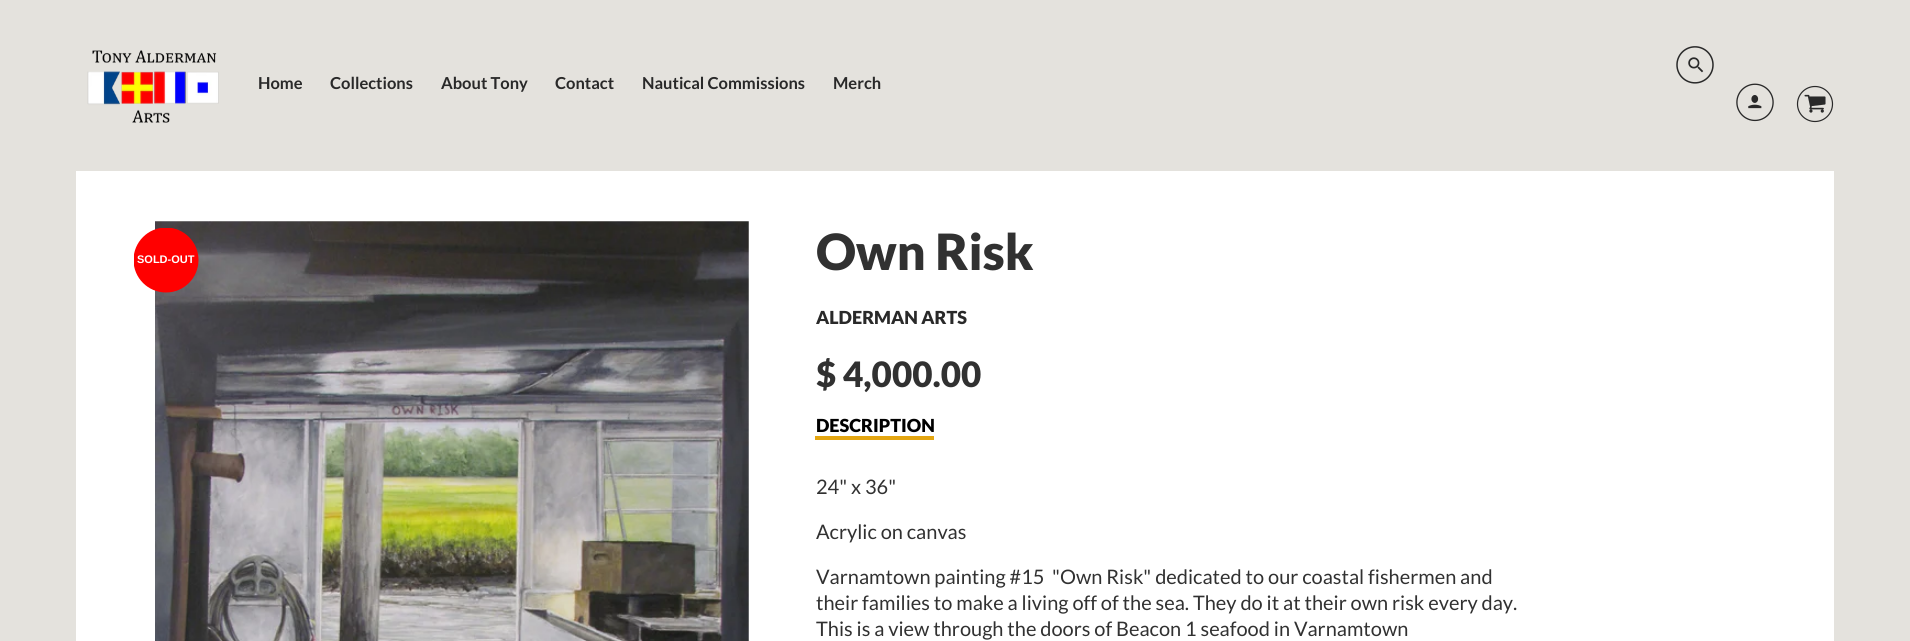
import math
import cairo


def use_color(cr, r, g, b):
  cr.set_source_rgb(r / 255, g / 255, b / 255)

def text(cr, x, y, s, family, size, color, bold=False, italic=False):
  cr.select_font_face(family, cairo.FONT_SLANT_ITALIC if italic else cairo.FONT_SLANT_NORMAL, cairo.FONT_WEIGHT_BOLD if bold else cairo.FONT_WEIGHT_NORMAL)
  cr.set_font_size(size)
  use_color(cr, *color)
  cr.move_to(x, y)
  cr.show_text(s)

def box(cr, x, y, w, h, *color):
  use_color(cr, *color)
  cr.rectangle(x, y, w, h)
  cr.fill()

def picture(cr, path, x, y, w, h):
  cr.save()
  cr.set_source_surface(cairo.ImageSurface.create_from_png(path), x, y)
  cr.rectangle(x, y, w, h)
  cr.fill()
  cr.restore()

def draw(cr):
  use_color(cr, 228, 226, 221)
  cr.paint()
  picture(cr, "img_01.png", 87, 50, 132, 73)
  picture(cr, "img_02.png", 1676, 46, 38, 38)
  picture(cr, "img_03.png", 1736, 83, 38, 39)
  picture(cr, "img_04.png", 1796, 85, 38, 38)
  box(cr, 76, 171, 1758, 470, 255, 255, 255)
  picture(cr, "img_05.png", 155, 221, 594, 420)
  cr.save()
  cr.rectangle(134, 228, 65, 65)
  cr.clip()
  use_color(cr, 255, 0, 0)
  cr.arc(166, 260, 32.5, 0, 2 * math.pi)
  cr.fill()
  cr.restore()
  box(cr, 815, 436, 119, 4, 228, 166, 17)
  text(cr, 258, 89, "Home", "Lato", 16.5, (41, 41, 41), bold=True)
  text(cr, 330, 89, "Collections", "Lato", 16.5, (41, 41, 41), bold=True)
  text(cr, 441, 89, "About Tony", "Lato", 16.5, (41, 41, 41), bold=True)
  text(cr, 555, 89, "Contact", "Lato", 16.5, (41, 41, 41), bold=True)
  text(cr, 642, 89, "Nautical Commissions", "Lato", 16.5, (41, 41, 41), bold=True)
  text(cr, 833, 89, "Merch", "Lato", 16.5, (41, 41, 41), bold=True)
  text(cr, 137, 263, "SOLD-OUT", "Liberation Sans", 11, (255, 255, 255), bold=True)
  text(cr, 816, 270, "Own Risk", "Lato Black", 50, (49, 49, 49))
  text(cr, 816, 324, "ALDERMAN ARTS", "Lato Black", 18, (41, 41, 41))
  text(cr, 816, 387, "$ 4,000.00", "Lato Black", 35, (49, 49, 49))
  text(cr, 816, 432, "DESCRIPTION", "Lato Black", 18, (0, 0, 0))
  text(cr, 816, 494, "24\" x 36\"", "Lato", 20, (49, 49, 49))
  text(cr, 816, 539, "Acrylic on canvas", "Lato", 20, (49, 49, 49))
  text(cr, 816, 584, "Varnamtown painting #15", "Lato", 20, (49, 49, 49))
  text(cr, 1052, 584, "\"Own Risk\" dedicated to our coastal fishermen and", "Lato", 20, (49, 49, 49))
  text(cr, 816, 610, "their families to make a living off of the sea. They do it at their own risk every day.", "Lato", 20, (49, 49, 49))
  text(cr, 816, 636, "This is a view through the doors of Beacon 1 seafood in Varnamtown", "Lato", 20, (49, 49, 49))


surface = cairo.ImageSurface(cairo.FORMAT_RGB24, 1910, 641)
cr = cairo.Context(surface)
options = cairo.FontOptions()
options.set_hint_metrics(cairo.HINT_METRICS_OFF)
options.set_hint_style(cairo.HINT_STYLE_NONE)
cr.set_font_options(options)
cr.set_miter_limit(4)
draw(cr)
surface.write_to_png("out.png")
